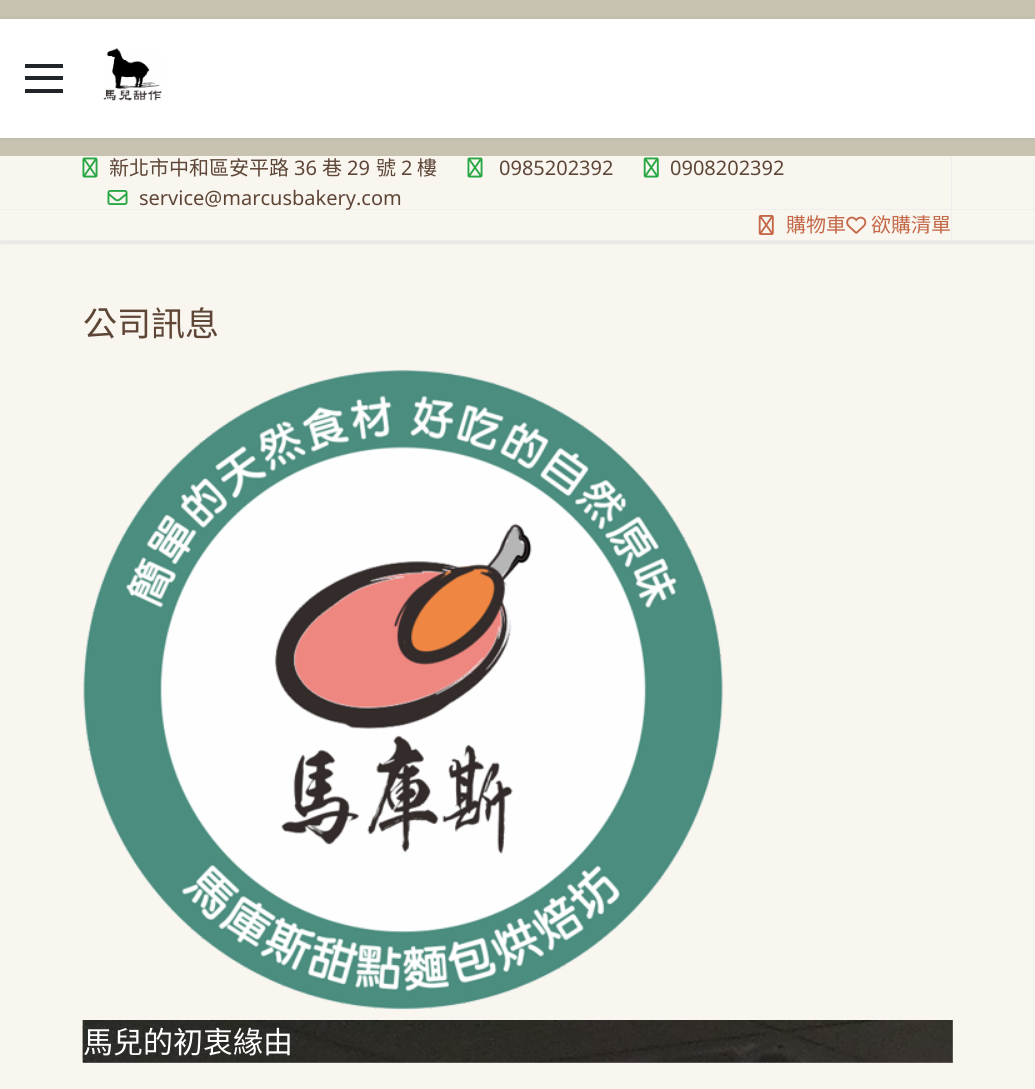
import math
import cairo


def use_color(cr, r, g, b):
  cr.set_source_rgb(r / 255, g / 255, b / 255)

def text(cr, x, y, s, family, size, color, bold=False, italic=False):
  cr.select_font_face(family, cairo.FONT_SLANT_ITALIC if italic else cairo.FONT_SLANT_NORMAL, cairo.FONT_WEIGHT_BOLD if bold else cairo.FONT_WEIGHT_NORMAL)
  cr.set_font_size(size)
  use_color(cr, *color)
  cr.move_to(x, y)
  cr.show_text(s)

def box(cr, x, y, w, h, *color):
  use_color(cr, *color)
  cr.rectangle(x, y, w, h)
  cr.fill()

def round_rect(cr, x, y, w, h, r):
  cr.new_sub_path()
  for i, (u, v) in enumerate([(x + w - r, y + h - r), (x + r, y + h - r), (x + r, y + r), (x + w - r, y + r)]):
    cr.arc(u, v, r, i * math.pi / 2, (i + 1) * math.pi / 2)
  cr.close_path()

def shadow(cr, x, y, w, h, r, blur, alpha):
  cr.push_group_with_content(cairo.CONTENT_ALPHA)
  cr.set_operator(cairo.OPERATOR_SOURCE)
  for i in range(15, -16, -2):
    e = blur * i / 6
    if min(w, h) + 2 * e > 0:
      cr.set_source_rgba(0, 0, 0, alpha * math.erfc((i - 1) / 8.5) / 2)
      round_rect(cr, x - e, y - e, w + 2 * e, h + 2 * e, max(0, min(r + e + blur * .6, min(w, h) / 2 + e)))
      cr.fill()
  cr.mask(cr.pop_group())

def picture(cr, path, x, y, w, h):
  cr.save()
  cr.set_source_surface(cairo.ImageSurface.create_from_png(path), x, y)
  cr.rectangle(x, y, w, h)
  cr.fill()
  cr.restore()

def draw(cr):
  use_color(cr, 249, 246, 240)
  cr.paint()
  box(cr, 83, 1020, 870, 43, 125, 123, 120)
  box(cr, 0, 0, 1035, 156, 200, 194, 176)
  use_color(cr, 0, 0, 0)
  shadow(cr, 0, 19, 1035, 119, 0, 3, 0.06)
  box(cr, 0, 19, 1035, 119, 255, 255, 255)
  box(cr, 25, 76, 38, 4, 33, 37, 41)
  box(cr, 25, 64, 38, 4, 33, 37, 41)
  box(cr, 25, 89, 38, 4, 33, 37, 41)
  picture(cr, "img_01.png", 103, 48, 59, 53)
  box(cr, 0, 209, 1035, 1, 238, 238, 238)
  box(cr, 951, 156, 1, 53, 238, 238, 238)
  picture(cr, "img_02.png", 82, 157, 16, 21)
  picture(cr, "img_02.png", 467, 157, 16, 21)
  picture(cr, "img_03.png", 643, 157, 16, 21)
  picture(cr, "img_04.png", 107, 190, 21, 15)
  cr.save()
  cr.rectangle(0, 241, 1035, 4)
  cr.clip()
  use_color(cr, 0, 0, 0)
  shadow(cr, 0, 213, 1035, 31, 0, 2.5, 0.07)
  cr.restore()
  box(cr, 0, 240, 1035, 1, 238, 238, 238)
  box(cr, 951, 210, 1, 30, 238, 238, 238)
  picture(cr, "img_05.png", 758, 215, 16, 20)
  picture(cr, "img_06.png", 846, 216, 21, 18)
  picture(cr, "img_07.png", 82, 370, 641, 640)
  picture(cr, "img_08.png", 82, 1020, 871, 43)
  text(cr, 109, 175, "新北市中和區安平路", "Noto Sans CJK TC", 20, (94, 70, 55))
  text(cr, 294, 175, "36", "Noto Sans", 20, (94, 70, 55))
  text(cr, 322, 175, "巷", "Noto Sans CJK TC", 20, (94, 70, 55))
  text(cr, 347, 175, "29", "Noto Sans", 20, (94, 70, 55))
  text(cr, 376, 175, "號", "Noto Sans CJK TC", 20, (94, 70, 55))
  text(cr, 401, 175, "2", "Noto Sans", 20, (94, 70, 55))
  text(cr, 417, 175, "樓", "Noto Sans CJK TC", 20, (94, 70, 55))
  text(cr, 499, 175, "0985202392", "Noto Sans", 20, (94, 70, 55))
  text(cr, 670, 175, "0908202392", "Noto Sans", 20, (94, 70, 55))
  text(cr, 139, 205, "service@marcusbakery.com", "Noto Sans", 20, (94, 70, 55))
  text(cr, 786, 232, "購物車", "Noto Sans CJK TC", 20, (196, 104, 72))
  text(cr, 871, 232, "欲購清單", "Noto Sans CJK TC", 20, (196, 104, 72))
  text(cr, 83, 336, "公司訊息", "Noto Sans CJK TC", 34, (94, 70, 55))
  text(cr, 83, 1053, "馬兒的初衷緣由", "Noto Sans CJK TC", 30, (255, 255, 255))


surface = cairo.ImageSurface(cairo.FORMAT_RGB24, 1035, 1089)
cr = cairo.Context(surface)
options = cairo.FontOptions()
options.set_hint_metrics(cairo.HINT_METRICS_OFF)
options.set_hint_style(cairo.HINT_STYLE_NONE)
cr.set_font_options(options)
cr.set_miter_limit(4)
draw(cr)
surface.write_to_png("out.png")
